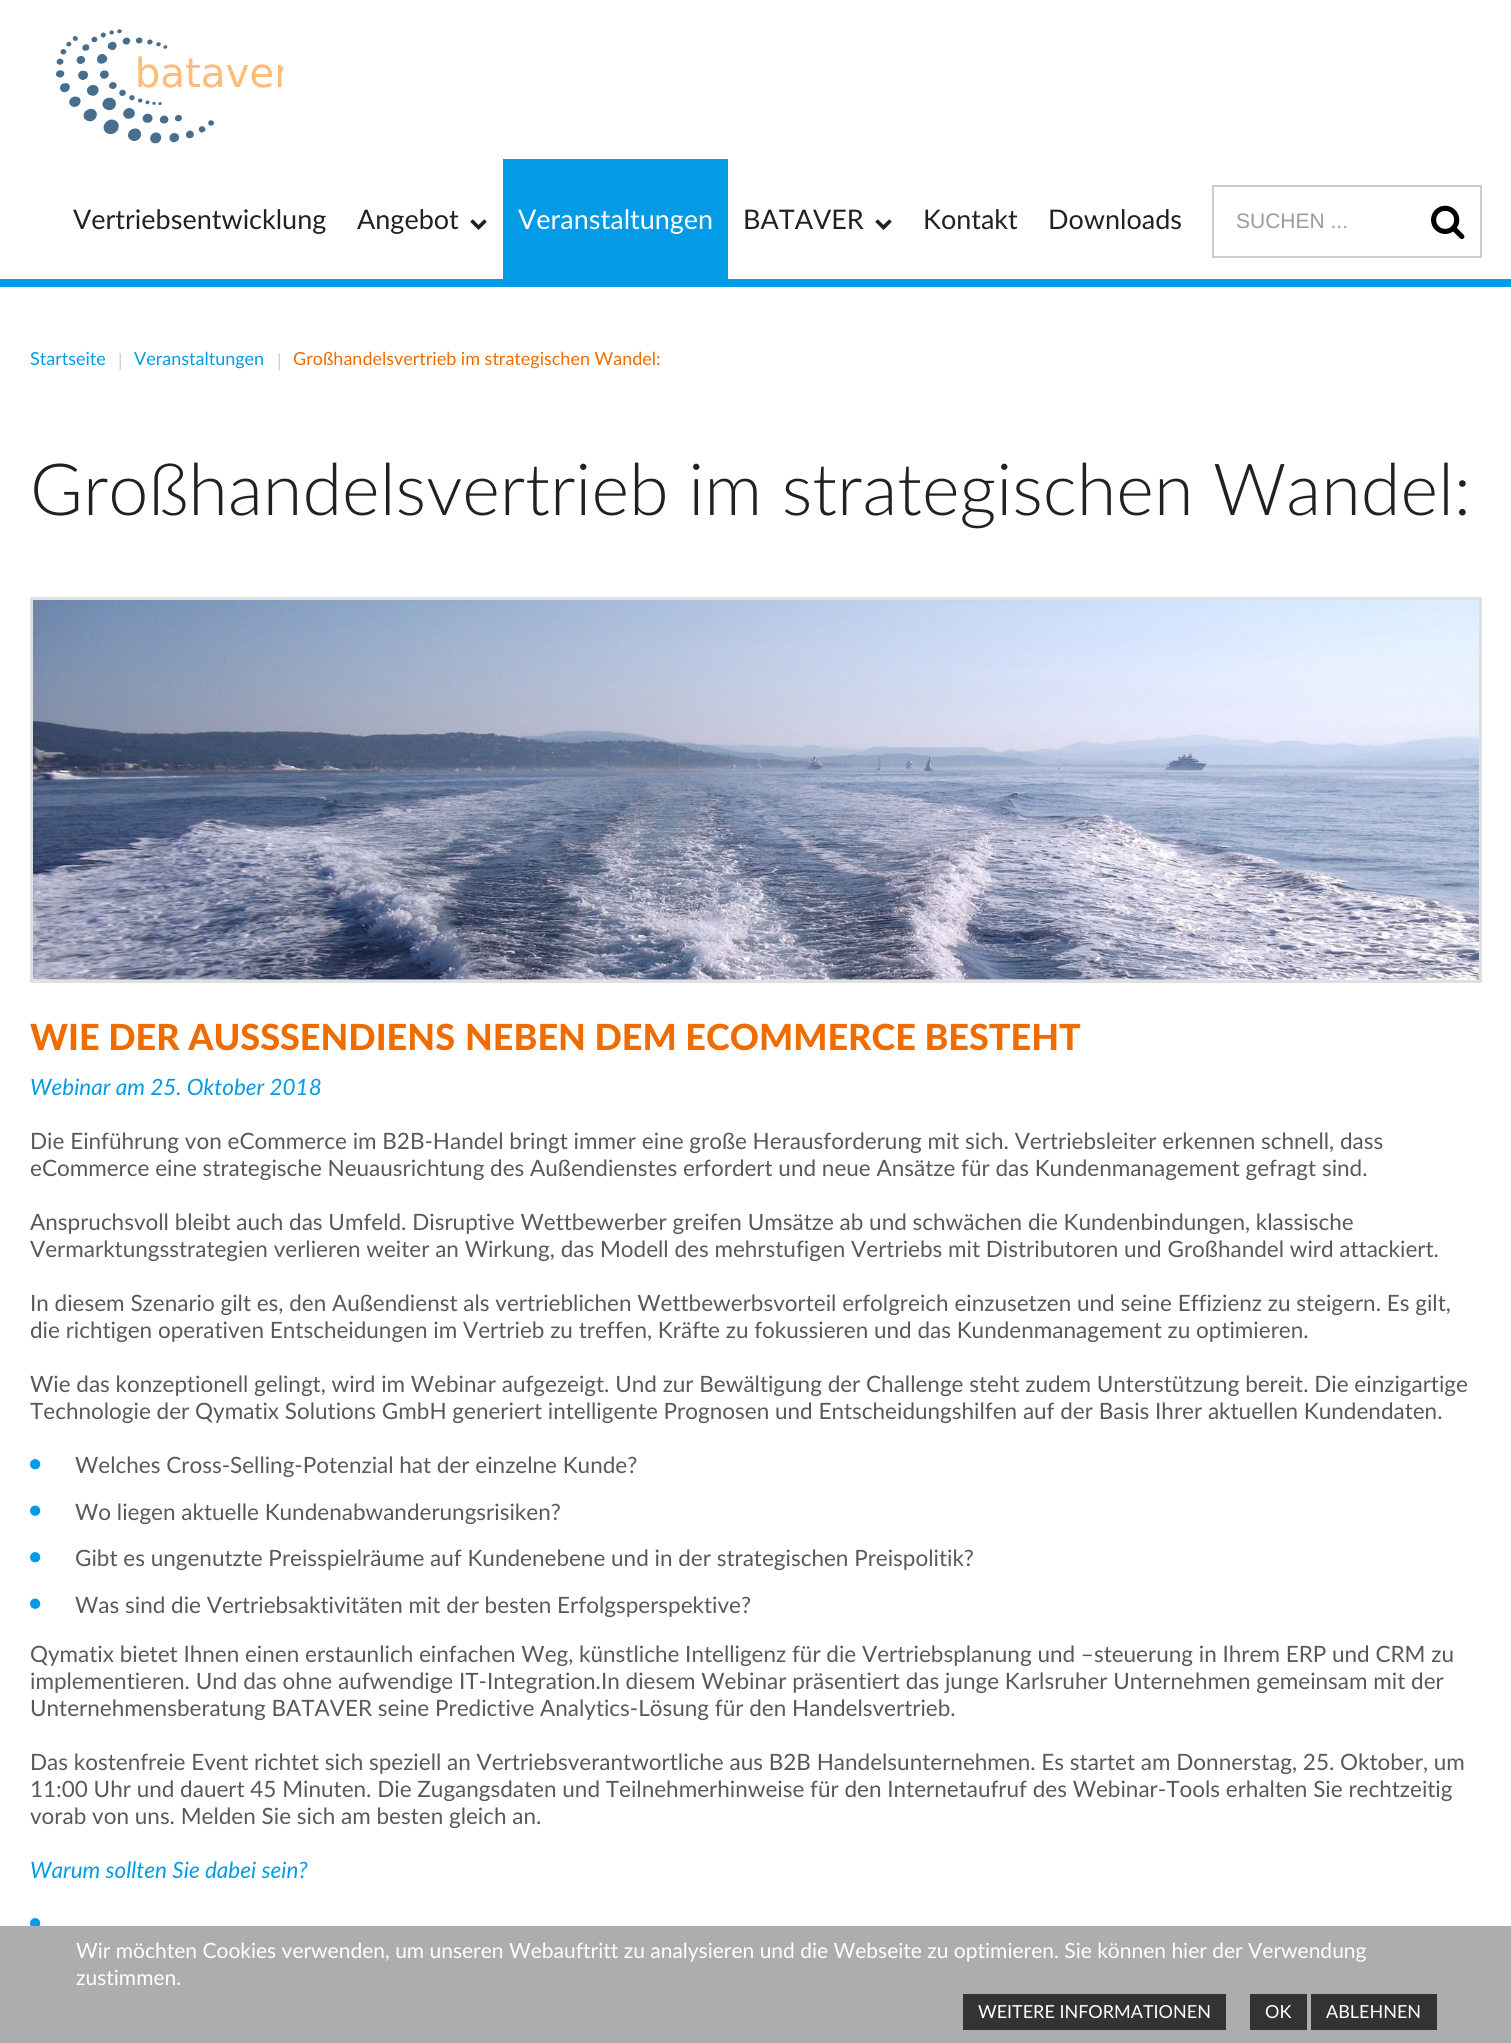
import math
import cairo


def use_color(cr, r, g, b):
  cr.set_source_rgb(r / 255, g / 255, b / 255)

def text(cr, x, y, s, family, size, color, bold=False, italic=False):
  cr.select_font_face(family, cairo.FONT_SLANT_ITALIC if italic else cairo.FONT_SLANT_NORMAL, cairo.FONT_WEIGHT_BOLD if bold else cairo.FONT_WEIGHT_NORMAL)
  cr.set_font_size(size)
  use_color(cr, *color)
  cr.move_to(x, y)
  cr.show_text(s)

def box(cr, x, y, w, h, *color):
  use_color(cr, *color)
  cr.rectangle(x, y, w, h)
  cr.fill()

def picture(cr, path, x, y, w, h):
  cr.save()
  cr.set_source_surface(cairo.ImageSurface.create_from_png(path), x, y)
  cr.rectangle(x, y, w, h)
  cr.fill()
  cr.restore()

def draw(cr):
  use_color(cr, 255, 255, 255)
  cr.paint()
  box(cr, 0, 279, 1511, 8, 3, 155, 229)
  picture(cr, "img_01.png", 56, 29, 228, 115)
  picture(cr, "img_02.png", 470, 219, 17, 11)
  box(cr, 503, 159, 225, 120, 3, 155, 229)
  picture(cr, "img_02.png", 875, 219, 17, 11)
  cr.rectangle(1213, 186, 268, 71)
  use_color(cr, 205, 205, 205)
  cr.stroke()
  picture(cr, "img_03.png", 1431, 205, 34, 35)
  cr.rectangle(31.5, 598.5, 1449, 383)
  use_color(cr, 224, 224, 224)
  cr.set_line_width(3)
  cr.stroke()
  picture(cr, "img_04.png", 33, 600, 1446, 380)
  picture(cr, "img_05.png", 30, 1459, 11, 11)
  picture(cr, "img_06.png", 30, 1505, 11, 11)
  picture(cr, "img_05.png", 30, 1552, 11, 11)
  picture(cr, "img_06.png", 30, 1598, 11, 11)
  picture(cr, "img_07.png", 30, 1918, 11, 8)
  box(cr, 0, 1926, 1511, 117, 173, 173, 173)
  box(cr, 963, 1994, 263, 36, 51, 51, 51)
  box(cr, 1250, 1994, 57, 36, 51, 51, 51)
  box(cr, 1311, 1994, 126, 36, 51, 51, 51)
  text(cr, 73, 229, "Vertriebsentwicklung", "Lato", 27, (33, 33, 33))
  text(cr, 357, 229, "Angebot", "Lato", 27, (33, 33, 33))
  text(cr, 518, 229, "Veranstaltungen", "Lato", 27, (255, 255, 255))
  text(cr, 743, 229, "BATAVER", "Lato", 27, (33, 33, 33))
  text(cr, 923, 229, "Kontakt", "Lato", 27, (33, 33, 33))
  text(cr, 1048, 229, "Downloads", "Lato", 27, (33, 33, 33))
  text(cr, 1236, 228, "SUCHEN ...", "Liberation Sans", 21, (148, 157, 166))
  text(cr, 30, 365, "Startseite", "Lato", 18, (3, 155, 229))
  text(cr, 118, 367, "|", "Lato", 18, (204, 204, 204))
  text(cr, 134, 365, "Veranstaltungen", "Lato", 18, (3, 155, 229))
  text(cr, 277, 367, "|", "Lato", 18, (204, 204, 204))
  text(cr, 293, 365, "Großhandelsvertrieb im strategischen Wandel:", "Lato", 18, (239, 108, 0))
  text(cr, 30, 515, "Großhandelsvertrieb im strategischen Wandel:", "Lato Light", 72, (33, 33, 33))
  text(cr, 30, 1050, "WIE DER AUSSSENDIENS", "Lato Black", 36, (239, 108, 0))
  text(cr, 465, 1050, "NEBEN DEM ECOMMERCE BESTEHT", "Lato Black", 36, (239, 108, 0))
  text(cr, 30, 1095, "Webinar am 25. Oktober 2018", "Lato", 22.5, (3, 155, 229), italic=True)
  text(cr, 30, 1149, "Die Einführung von eCommerce im B2B-Handel bringt immer eine große Herausforderung mit sich. Vertriebsleiter erkennen schnell, dass", "Lato", 22.5, (89, 89, 89))
  text(cr, 30, 1176, "eCommerce eine strategische Neuausrichtung des Außendienstes erfordert und neue Ansätze für das Kundenmanagement gefragt sind.", "Lato", 22.5, (89, 89, 89))
  text(cr, 30, 1230, "Anspruchsvoll bleibt auch das Umfeld. Disruptive Wettbewerber greifen Umsätze ab und schwächen die Kundenbindungen, klassische", "Lato", 22.5, (89, 89, 89))
  text(cr, 30, 1257, "Vermarktungsstrategien verlieren weiter an Wirkung, das Modell des mehrstufigen Vertriebs mit Distributoren und Großhandel wird attackiert.", "Lato", 22.5, (89, 89, 89))
  text(cr, 30, 1311, "In diesem Szenario gilt es, den Außendienst als vertrieblichen Wettbewerbsvorteil erfolgreich einzusetzen und seine Effizienz zu steigern. Es gilt,", "Lato", 22.5, (89, 89, 89))
  text(cr, 30, 1338, "die richtigen operativen Entscheidungen im Vertrieb zu treffen, Kräfte zu fokussieren und das Kundenmanagement zu optimieren.", "Lato", 22.5, (89, 89, 89))
  text(cr, 30, 1392, "Wie das konzeptionell gelingt, wird im Webinar aufgezeigt. Und zur Bewältigung der Challenge steht zudem Unterstützung bereit. Die einzigartige", "Lato", 22.5, (89, 89, 89))
  text(cr, 30, 1419, "Technologie der Qymatix Solutions GmbH generiert intelligente Prognosen und Entscheidungshilfen auf der Basis Ihrer aktuellen Kundendaten.", "Lato", 22.5, (89, 89, 89))
  text(cr, 75, 1473, "Welches Cross-Selling-Potenzial hat der einzelne Kunde?", "Lato", 22.5, (89, 89, 89))
  text(cr, 75, 1520, "Wo liegen aktuelle Kundenabwanderungsrisiken?", "Lato", 22.5, (89, 89, 89))
  text(cr, 75, 1566, "Gibt es ungenutzte Preisspielräume auf Kundenebene und in der strategischen Preispolitik?", "Lato", 22.5, (89, 89, 89))
  text(cr, 75, 1613, "Was sind die Vertriebsaktivitäten mit der besten Erfolgsperspektive?", "Lato", 22.5, (89, 89, 89))
  text(cr, 30, 1662, "Qymatix bietet Ihnen einen erstaunlich einfachen Weg, künstliche Intelligenz für die Vertriebsplanung und –steuerung in Ihrem ERP und CRM zu", "Lato", 22.5, (89, 89, 89))
  text(cr, 30, 1689, "implementieren. Und das ohne aufwendige IT-Integration.In diesem Webinar präsentiert das junge Karlsruher Unternehmen gemeinsam mit der", "Lato", 22.5, (89, 89, 89))
  text(cr, 30, 1716, "Unternehmensberatung BATAVER seine Predictive Analytics-Lösung für den Handelsvertrieb.", "Lato", 22.5, (89, 89, 89))
  text(cr, 30, 1770, "Das kostenfreie Event richtet sich speziell an Vertriebsverantwortliche aus B2B Handelsunternehmen. Es startet am Donnerstag, 25. Oktober, um", "Lato", 22.5, (89, 89, 89))
  text(cr, 30, 1797, "11:00 Uhr und dauert 45 Minuten. Die Zugangsdaten und Teilnehmerhinweise für den Internetaufruf des Webinar-Tools erhalten Sie rechtzeitig", "Lato", 22.5, (89, 89, 89))
  text(cr, 30, 1824, "vorab von uns. Melden Sie sich am besten gleich an.", "Lato", 22.5, (89, 89, 89))
  text(cr, 30, 1878, "Warum sollten Sie dabei sein?", "Lato", 22.5, (3, 155, 229), italic=True)
  text(cr, 76, 1958, "Wir möchten Cookies verwenden, um unseren Webauftritt zu analysieren und die Webseite zu optimieren. Sie können hier der Verwendung", "Lato", 21, (255, 255, 255))
  text(cr, 76, 1985, "zustimmen.", "Lato", 21, (255, 255, 255))
  text(cr, 978, 2018, "WEITERE INFORMATIONEN", "Lato", 18, (255, 255, 255))
  text(cr, 1265, 2018, "OK", "Lato", 18, (255, 255, 255))
  text(cr, 1326, 2018, "ABLEHNEN", "Lato", 18, (255, 255, 255))


surface = cairo.ImageSurface(cairo.FORMAT_RGB24, 1511, 2043)
cr = cairo.Context(surface)
options = cairo.FontOptions()
options.set_hint_metrics(cairo.HINT_METRICS_OFF)
options.set_hint_style(cairo.HINT_STYLE_NONE)
cr.set_font_options(options)
cr.set_miter_limit(4)
draw(cr)
surface.write_to_png("out.png")
